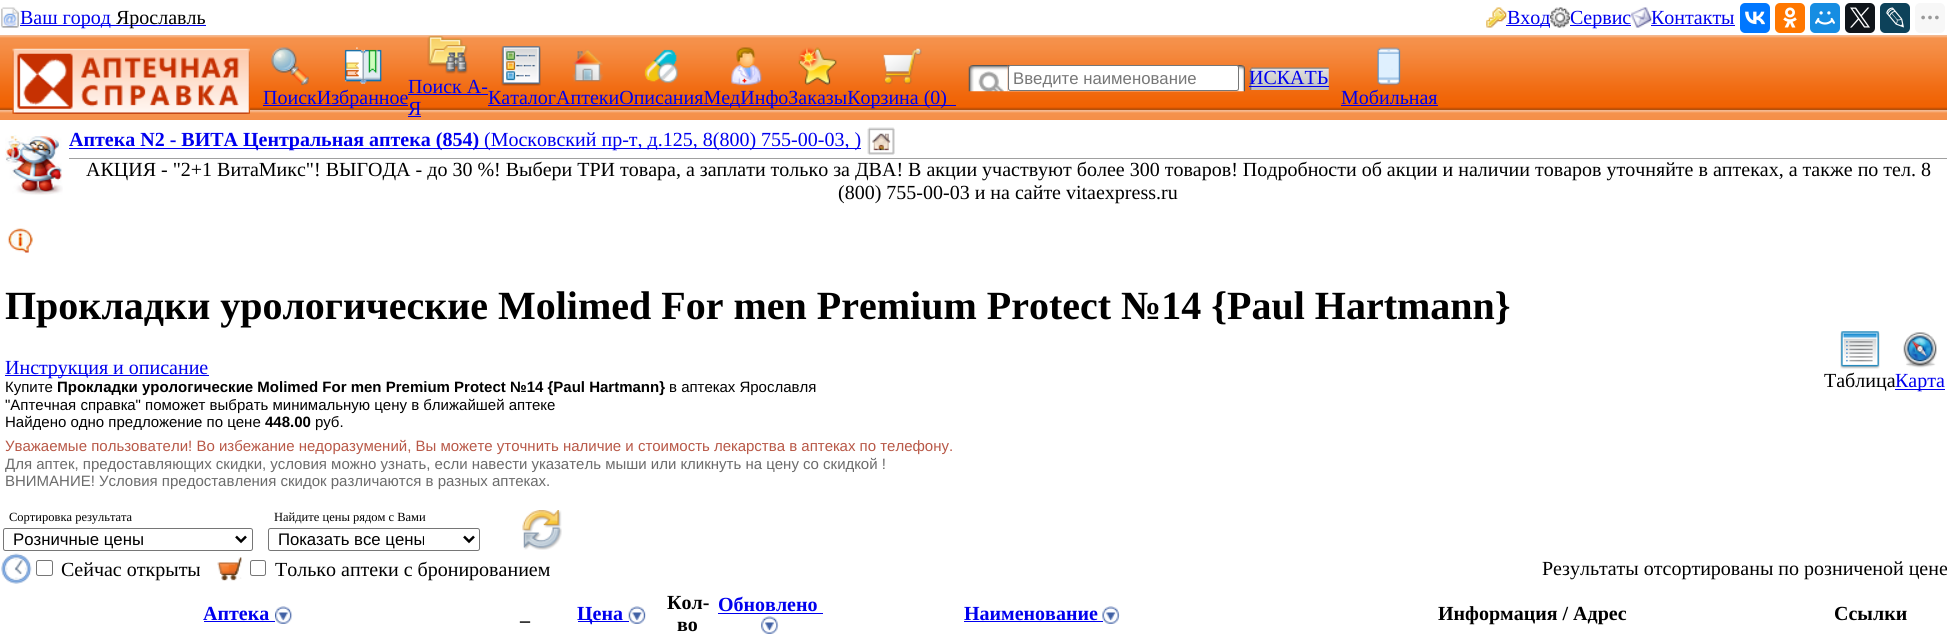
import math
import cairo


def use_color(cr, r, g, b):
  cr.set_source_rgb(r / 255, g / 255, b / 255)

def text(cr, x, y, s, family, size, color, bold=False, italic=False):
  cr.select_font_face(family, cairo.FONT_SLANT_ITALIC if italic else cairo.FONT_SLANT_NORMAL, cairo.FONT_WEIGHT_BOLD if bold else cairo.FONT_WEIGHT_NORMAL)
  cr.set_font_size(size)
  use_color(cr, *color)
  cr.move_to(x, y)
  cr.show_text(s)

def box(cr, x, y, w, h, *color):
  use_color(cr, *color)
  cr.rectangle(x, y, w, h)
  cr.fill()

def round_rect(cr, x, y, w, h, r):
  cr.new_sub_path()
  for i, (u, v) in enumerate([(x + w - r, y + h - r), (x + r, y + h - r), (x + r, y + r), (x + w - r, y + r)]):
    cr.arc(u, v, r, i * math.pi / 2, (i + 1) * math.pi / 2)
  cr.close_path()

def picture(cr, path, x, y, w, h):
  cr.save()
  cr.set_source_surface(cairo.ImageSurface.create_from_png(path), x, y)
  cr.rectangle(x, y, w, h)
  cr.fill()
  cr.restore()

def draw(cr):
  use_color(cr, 255, 255, 255)
  cr.paint()
  picture(cr, "img_01.png", 1, 7, 18, 21)
  box(cr, 20, 25, 186, 1, 0, 0, 238)
  picture(cr, "img_02.png", 1486, 7, 21, 21)
  box(cr, 1506, 25, 44, 1, 0, 0, 238)
  picture(cr, "img_03.png", 1550, 7, 20, 21)
  box(cr, 1570, 25, 61, 1, 0, 0, 238)
  picture(cr, "img_04.png", 1631, 7, 21, 21)
  box(cr, 1651, 25, 84, 1, 0, 0, 238)
  use_color(cr, 0, 119, 255)
  round_rect(cr, 1740, 3, 30, 30, 5)
  cr.fill()
  picture(cr, "img_05.png", 1745, 11, 20, 14)
  use_color(cr, 255, 119, 0)
  round_rect(cr, 1775, 3, 30, 30, 5)
  cr.fill()
  picture(cr, "img_06.png", 1783, 7, 14, 21)
  use_color(cr, 22, 141, 226)
  round_rect(cr, 1810, 3, 30, 30, 5)
  cr.fill()
  picture(cr, "img_07.png", 1815, 11, 20, 14)
  use_color(cr, 15, 20, 25)
  round_rect(cr, 1845, 3, 30, 30, 5)
  cr.fill()
  picture(cr, "img_08.png", 1850, 7, 20, 21)
  use_color(cr, 13, 66, 90)
  round_rect(cr, 1880, 3, 30, 30, 5)
  cr.fill()
  picture(cr, "img_09.png", 1886, 7, 18, 21)
  use_color(cr, 247, 247, 247)
  round_rect(cr, 1915, 3, 30, 30, 5)
  cr.fill()
  picture(cr, "img_10.png", 1921, 15, 18, 5)
  picture(cr, "img_11.png", 0, 35, 1947, 85)
  picture(cr, "img_12.png", 12, 48, 238, 66)
  picture(cr, "img_13.png", 344, 47, 38, 37)
  picture(cr, "img_14.png", 427, 36, 41, 38)
  box(cr, 408, 94, 80, 1, 0, 0, 238)
  box(cr, 408, 116, 13, 1, 0, 0, 238)
  picture(cr, "img_15.png", 572, 49, 32, 33)
  picture(cr, "img_16.png", 644, 49, 35, 35)
  picture(cr, "img_17.png", 731, 47, 31, 39)
  picture(cr, "img_18.png", 798, 47, 39, 39)
  picture(cr, "img_19.png", 882, 47, 40, 38)
  picture(cr, "img_20.png", 968, 65, 7, 27)
  picture(cr, "img_21.png", 975, 65, 33, 27)
  picture(cr, "img_22.png", 1007, 65, 232, 27)
  picture(cr, "img_23.png", 1238, 65, 7, 27)
  use_color(cr, 255, 255, 255)
  round_rect(cr, 1008.5, 65.5, 230, 25, 2)
  cr.fill_preserve()
  use_color(cr, 118, 118, 118)
  cr.set_line_width(1)
  cr.stroke()
  picture(cr, "img_24.png", 1248, 67, 81, 23)
  box(cr, 1249, 86, 80, 1, 0, 0, 238)
  picture(cr, "img_25.png", 271, 47, 38, 39)
  box(cr, 263, 105, 145, 1, 0, 0, 238)
  picture(cr, "img_26.png", 501, 46, 40, 40)
  box(cr, 488, 105, 468, 1, 0, 0, 238)
  picture(cr, "img_27.png", 1377, 47, 24, 39)
  box(cr, 1341, 105, 97, 1, 0, 0, 238)
  picture(cr, "img_28.png", 5, 135, 58, 60)
  box(cr, 69, 148, 792, 1, 0, 0, 238)
  picture(cr, "img_29.png", 867, 127, 28, 28)
  box(cr, 69, 158, 1878, 1, 160, 160, 160)
  picture(cr, "img_30.png", 7, 228, 26, 25)
  box(cr, 5, 375, 204, 1, 0, 0, 238)
  picture(cr, "img_31.png", 1840, 331, 40, 38)
  picture(cr, "img_32.png", 1903, 332, 34, 36)
  box(cr, 1895, 389, 50, 1, 0, 0, 238)
  round_rect(cr, 3.5, 528.5, 249, 22, 2)
  use_color(cr, 118, 118, 118)
  cr.stroke()
  cr.new_path()
  cr.move_to(236, 536.5)
  cr.line_to(241, 541.5)
  cr.line_to(246, 536.5)
  use_color(cr, 0, 0, 0)
  cr.set_line_width(2.5)
  cr.stroke()
  round_rect(cr, 268.5, 528.5, 211, 22, 2)
  use_color(cr, 118, 118, 118)
  cr.set_line_width(1)
  cr.stroke()
  cr.new_path()
  cr.move_to(464, 536.5)
  cr.line_to(469, 541.5)
  cr.line_to(474, 536.5)
  use_color(cr, 0, 0, 0)
  cr.set_line_width(2.5)
  cr.stroke()
  picture(cr, "img_33.png", 522, 510, 40, 40)
  picture(cr, "img_34.png", 1, 553, 31, 31)
  round_rect(cr, 36.5, 560.5, 16, 15, 2)
  use_color(cr, 118, 118, 118)
  cr.set_line_width(1)
  cr.stroke()
  picture(cr, "img_35.png", 217, 557, 25, 24)
  round_rect(cr, 250.5, 560.5, 15, 15, 2)
  cr.stroke()
  box(cr, 718, 613, 105, 1, 0, 0, 238)
  picture(cr, "img_36.png", 761, 616, 18, 18)
  box(cr, 204, 621, 71, 1, 0, 0, 238)
  picture(cr, "img_37.png", 275, 606, 18, 18)
  box(cr, 578, 621, 51, 1, 0, 0, 238)
  picture(cr, "img_38.png", 628, 606, 18, 18)
  box(cr, 964, 621, 139, 1, 0, 0, 238)
  picture(cr, "img_39.png", 1102, 606, 18, 18)
  text(cr, 20, 24, "Ваш город", "Liberation Serif", 20, (0, 0, 238))
  text(cr, 116, 24, "Ярославль", "Liberation Serif", 20, (0, 0, 0))
  text(cr, 1507, 24, "Вход", "Liberation Serif", 20, (0, 0, 238))
  text(cr, 1570, 24, "Сервис", "Liberation Serif", 20, (0, 0, 238))
  text(cr, 1651, 24, "Контакты", "Liberation Serif", 20, (0, 0, 238))
  text(cr, 408, 93, "Поиск А-", "Liberation Serif", 20, (0, 0, 238))
  text(cr, 408, 115, "Я", "Liberation Serif", 20, (0, 0, 238))
  text(cr, 1013, 84, "Введите наименование", "Liberation Sans", 16.75, (119, 119, 119))
  text(cr, 1249, 84, "ИСКАТЬ", "Liberation Serif", 20, (0, 0, 238))
  text(cr, 263, 104, "ПоискИзбранное", "Liberation Serif", 20, (0, 0, 238))
  text(cr, 488, 104, "КаталогАптекиОписанияМедИнфоЗаказыКорзина (0)", "Liberation Serif", 20, (0, 0, 238))
  text(cr, 1341, 104, "Мобильная", "Liberation Serif", 20, (0, 0, 238))
  text(cr, 69, 146, "Аптека N2 - ВИТА Центральная аптека (854)", "Liberation Serif", 20, (0, 0, 238), bold=True)
  text(cr, 484, 146, "(Московский пр-т, д.125, 8(800) 755-00-03, )", "Liberation Serif", 20, (0, 0, 238))
  text(cr, 86, 176, "АКЦИЯ - \"2+1 ВитаМикс\"! ВЫГОДА - до 30 %! Выбери ТРИ товара, а заплати только за ДВА! В акции участвуют более 300 товаров! Подробности об акции и наличии товаров уточняйте в аптеках, а также по тел. 8", "Liberation Serif", 20, (0, 0, 0))
  text(cr, 838, 199, "(800) 755-00-03 и на сайте vitaexpress.ru", "Liberation Serif", 20, (0, 0, 0))
  text(cr, 5, 319, "Прокладки урологические Molimed For men Premium Protect №14 {Paul Hartmann}", "Liberation Serif", 40, (0, 0, 0), bold=True)
  text(cr, 5, 374, "Инструкция и описание", "Liberation Serif", 20, (0, 0, 238))
  text(cr, 5, 392, "Купите", "Liberation Sans", 15, (0, 0, 0))
  text(cr, 57, 392, "Прокладки урологические Molimed For men Premium Protect №14 {Paul Hartmann}", "Liberation Sans", 15, (0, 0, 0), bold=True)
  text(cr, 669, 392, "в аптеках Ярославля", "Liberation Sans", 15, (0, 0, 0))
  text(cr, 5, 410, "\"Аптечная справка\" поможет выбрать минимальную цену в ближайшей аптеке", "Liberation Sans", 15, (0, 0, 0))
  text(cr, 5, 427, "Найдено одно предложение по цене", "Liberation Sans", 15, (0, 0, 0))
  text(cr, 265, 427, "448.00", "Liberation Sans", 15, (0, 0, 0), bold=True)
  text(cr, 315, 427, "руб.", "Liberation Sans", 15, (0, 0, 0))
  text(cr, 5, 451, "Уважаемые пользователи! Во избежание недоразумений, Вы можете уточнить наличие и стоимость лекарства в аптеках по телефону.", "Liberation Sans", 15, (184, 88, 71))
  text(cr, 5, 469, "Для аптек, предоставляющих скидки, условия можно узнать, если навести указатель мыши или кликнуть на цену со скидкой !", "Liberation Sans", 15, (107, 107, 107))
  text(cr, 5, 486, "ВНИМАНИЕ! Условия предоставления скидок различаются в разных аптеках.", "Liberation Sans", 15, (107, 107, 107))
  text(cr, 1824, 387, "Таблица", "Liberation Serif", 20, (0, 0, 0))
  text(cr, 1895, 387, "Карта", "Liberation Serif", 20, (0, 0, 238))
  text(cr, 9, 521, "Сортировка результата", "Liberation Serif", 12.5, (0, 0, 0))
  text(cr, 13, 545, "Розничные цены", "Liberation Sans", 16.75, (0, 0, 0))
  text(cr, 274, 521, "Найдите цены рядом с Вами", "Liberation Serif", 12.5, (0, 0, 0))
  text(cr, 278, 545, "Показать все цены", "Liberation Sans", 16.75, (0, 0, 0))
  text(cr, 61, 576, "Сейчас открыты", "Liberation Serif", 20, (0, 0, 0))
  text(cr, 275, 576, "Только аптеки с бронированием", "Liberation Serif", 20, (0, 0, 0))
  text(cr, 1542, 575, "Результаты отсортированы по розниченой цене", "Liberation Serif", 20, (0, 0, 0))
  text(cr, 667, 609, "Кол-", "Liberation Serif", 20, (0, 0, 0), bold=True)
  text(cr, 677, 631, "во", "Liberation Serif", 20, (0, 0, 0), bold=True)
  text(cr, 718, 611, "Обновлено", "Liberation Serif", 20, (0, 0, 238), bold=True)
  text(cr, 203, 620, "Аптека", "Liberation Serif", 20, (0, 0, 238), bold=True)
  text(cr, 577, 620, "Цена", "Liberation Serif", 20, (0, 0, 238), bold=True)
  text(cr, 964, 620, "Наименование", "Liberation Serif", 20, (0, 0, 238), bold=True)
  text(cr, 1438, 620, "Информация / Адрес", "Liberation Serif", 20, (0, 0, 0), bold=True)
  text(cr, 1834, 620, "Ссылки", "Liberation Serif", 20, (0, 0, 0), bold=True)
  text(cr, 520, 620, "_", "Liberation Serif", 20, (0, 0, 0), bold=True)


surface = cairo.ImageSurface(cairo.FORMAT_RGB24, 1947, 634)
cr = cairo.Context(surface)
options = cairo.FontOptions()
options.set_hint_metrics(cairo.HINT_METRICS_OFF)
options.set_hint_style(cairo.HINT_STYLE_NONE)
cr.set_font_options(options)
cr.set_miter_limit(4)
draw(cr)
surface.write_to_png("out.png")
